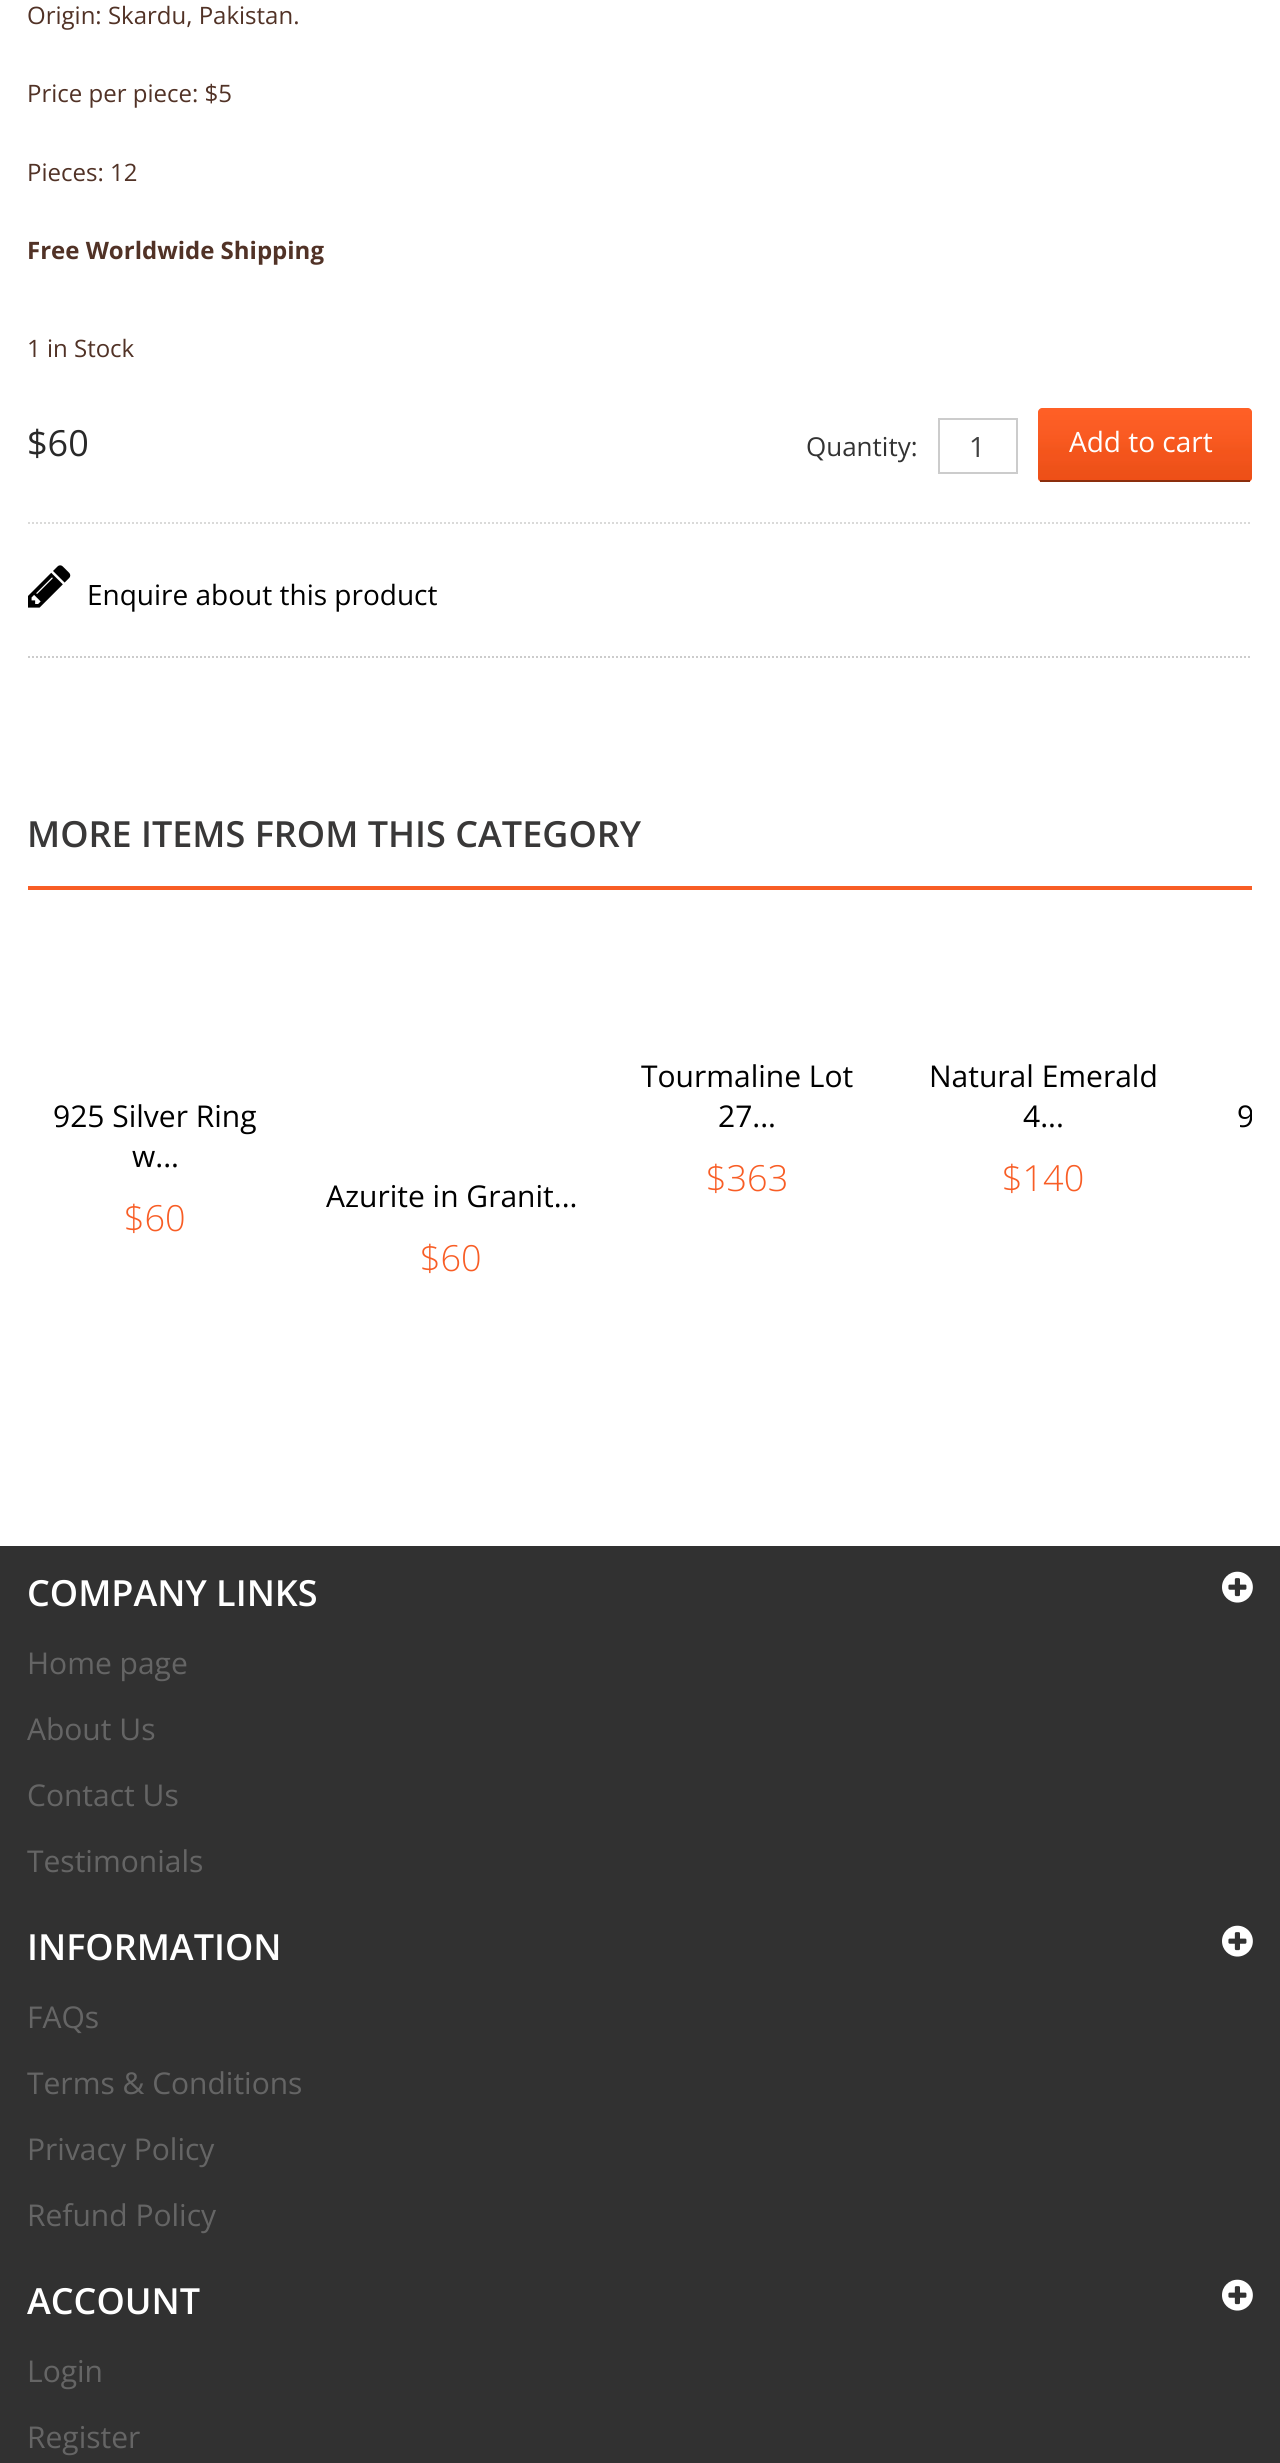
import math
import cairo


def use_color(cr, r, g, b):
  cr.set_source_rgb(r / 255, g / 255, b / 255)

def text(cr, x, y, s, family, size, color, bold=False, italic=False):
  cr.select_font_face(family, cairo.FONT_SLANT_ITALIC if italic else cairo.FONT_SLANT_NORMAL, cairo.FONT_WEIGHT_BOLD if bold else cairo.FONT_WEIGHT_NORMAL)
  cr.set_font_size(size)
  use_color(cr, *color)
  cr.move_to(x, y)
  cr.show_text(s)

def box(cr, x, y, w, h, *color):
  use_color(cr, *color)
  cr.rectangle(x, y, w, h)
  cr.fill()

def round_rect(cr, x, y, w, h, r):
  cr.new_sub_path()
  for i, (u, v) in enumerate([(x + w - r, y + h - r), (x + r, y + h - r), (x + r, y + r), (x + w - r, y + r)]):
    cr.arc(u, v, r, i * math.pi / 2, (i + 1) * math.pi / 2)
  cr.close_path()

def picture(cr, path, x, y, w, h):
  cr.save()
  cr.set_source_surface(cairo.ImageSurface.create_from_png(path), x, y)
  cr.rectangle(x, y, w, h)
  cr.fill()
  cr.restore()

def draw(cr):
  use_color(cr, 255, 255, 255)
  cr.paint()
  cr.new_path()
  cr.move_to(28, 523)
  cr.line_to(1252, 523)
  use_color(cr, 218, 218, 217)
  cr.set_dash([2, 2])
  cr.stroke()
  cr.rectangle(939, 419, 78, 54)
  use_color(cr, 204, 204, 204)
  cr.set_dash([])
  cr.stroke()
  cr.save()
  round_rect(cr, 1038, 408, 214, 74, 4)
  cr.clip()
  gradient = cairo.LinearGradient(1145, 408, 1145, 480)
  gradient.add_color_stop_rgba(0, 1, 0.376, 0.149, 1)
  gradient.add_color_stop_rgba(0.35, 0.98, 0.357, 0.137, 1)
  gradient.add_color_stop_rgba(0.5, 0.969, 0.345, 0.118, 1)
  gradient.add_color_stop_rgba(0.53, 0.957, 0.345, 0.122, 1)
  gradient.add_color_stop_rgba(0.59, 0.957, 0.333, 0.106, 1)
  gradient.add_color_stop_rgba(0.71, 0.953, 0.329, 0.11, 1)
  gradient.add_color_stop_rgba(0.82, 0.933, 0.322, 0.098, 1)
  gradient.add_color_stop_rgba(1, 0.933, 0.31, 0.09, 1)
  cr.set_source(gradient)
  cr.new_path()
  cr.move_to(1042, 408)
  cr.line_to(1248, 408)
  cr.curve_to(1250, 408, 1252, 410, 1252, 412)
  cr.line_to(1252, 480)
  cr.line_to(1038, 480)
  cr.line_to(1038, 412)
  cr.curve_to(1038, 410, 1040, 408, 1042, 408)
  cr.close_path()
  cr.fill()
  gradient = cairo.LinearGradient(1145, 480, 1145, 552)
  gradient.add_color_stop_rgba(0, 1, 0.376, 0.149, 1)
  gradient.add_color_stop_rgba(0.35, 0.98, 0.357, 0.137, 1)
  gradient.add_color_stop_rgba(0.5, 0.969, 0.345, 0.118, 1)
  gradient.add_color_stop_rgba(0.53, 0.957, 0.345, 0.122, 1)
  gradient.add_color_stop_rgba(0.59, 0.957, 0.333, 0.106, 1)
  gradient.add_color_stop_rgba(0.71, 0.953, 0.329, 0.11, 1)
  gradient.add_color_stop_rgba(0.82, 0.933, 0.322, 0.098, 1)
  gradient.add_color_stop_rgba(1, 0.933, 0.31, 0.09, 1)
  cr.set_source(gradient)
  cr.rectangle(1038, 480, 214, 2)
  cr.fill()
  cr.restore()
  box(cr, 1040, 480, 210, 2, 139, 46, 13)
  cr.new_path()
  cr.move_to(28, 657)
  cr.line_to(1252, 657)
  use_color(cr, 204, 204, 204)
  cr.set_dash([2, 2])
  cr.stroke()
  picture(cr, "img_01.png", 28, 565, 43, 43)
  box(cr, 28, 886, 1224, 4, 248, 93, 37)
  box(cr, 0, 1546, 1280, 917, 49, 49, 49)
  picture(cr, "img_02.png", 1222, 1571, 31, 32)
  picture(cr, "img_02.png", 1222, 1925, 31, 32)
  picture(cr, "img_02.png", 1222, 2279, 31, 32)
  text(cr, 27, 24, "Origin: Skardu, Pakistan.", "Open Sans", 24, (81, 50, 38))
  text(cr, 27, 102, "Price per piece: $5", "Open Sans", 24, (81, 50, 38))
  text(cr, 27, 181, "Pieces: 12", "Open Sans", 24, (81, 50, 38))
  text(cr, 27, 259, "Free Worldwide Shipping", "Open Sans", 24, (81, 50, 38), bold=True)
  text(cr, 27, 357, "1 in Stock", "Open Sans", 24, (81, 50, 38))
  text(cr, 27, 456, "$60", "Open Sans", 36, (41, 41, 41))
  text(cr, 806, 456, "Quantity:", "Open Sans", 26, (51, 51, 51))
  text(cr, 969, 457, "1", "Open Sans", 28, (64, 64, 64))
  text(cr, 1069, 452, "Add to cart", "Open Sans", 28, (255, 255, 255))
  text(cr, 87, 605, "Enquire about this product", "Open Sans", 28, (0, 0, 0))
  text(cr, 27, 847, "MORE ITEMS FROM THIS CATEGORY", "Open Sans SemiBold", 36, (57, 56, 56))
  text(cr, 53, 1127, "925 Silver Ring", "Open Sans", 30, (0, 0, 0))
  text(cr, 132, 1167, "w...", "Open Sans", 30, (0, 0, 0))
  text(cr, 124, 1231, "$60", "Open Sans Light", 36, (248, 93, 37))
  text(cr, 641, 1087, "Tourmaline Lot", "Open Sans", 30, (0, 0, 0))
  text(cr, 718, 1127, "27...", "Open Sans", 30, (0, 0, 0))
  text(cr, 706, 1191, "$363", "Open Sans Light", 36, (248, 93, 37))
  text(cr, 929, 1087, "Natural Emerald", "Open Sans", 30, (0, 0, 0))
  text(cr, 1023, 1127, "4...", "Open Sans", 30, (0, 0, 0))
  text(cr, 1002, 1191, "$140", "Open Sans Light", 36, (248, 93, 37))
  cr.save()
  cr.rectangle(28, 964, 1224, 440)
  cr.clip()
  text(cr, 1237, 1127, "9", "Open Sans", 30, (0, 0, 0))
  cr.restore()
  text(cr, 326, 1207, "Azurite in Granit...", "Open Sans", 30, (0, 0, 0))
  text(cr, 420, 1271, "$60", "Open Sans Light", 36, (248, 93, 37))
  text(cr, 27, 1606, "COMPANY LINKS", "Open Sans SemiBold", 36, (255, 255, 255))
  text(cr, 27, 1674, "Home page", "Open Sans", 30, (101, 101, 101))
  text(cr, 27, 1740, "About Us", "Open Sans", 30, (101, 101, 101))
  text(cr, 27, 1806, "Contact Us", "Open Sans", 30, (101, 101, 101))
  text(cr, 27, 1872, "Testimonials", "Open Sans", 30, (101, 101, 101))
  text(cr, 27, 1960, "INFORMATION", "Open Sans SemiBold", 36, (255, 255, 255))
  text(cr, 27, 2028, "FAQs", "Open Sans", 30, (101, 101, 101))
  text(cr, 27, 2094, "Terms & Conditions", "Open Sans", 30, (101, 101, 101))
  text(cr, 27, 2160, "Privacy Policy", "Open Sans", 30, (101, 101, 101))
  text(cr, 27, 2226, "Refund Policy", "Open Sans", 30, (101, 101, 101))
  text(cr, 27, 2314, "ACCOUNT", "Open Sans SemiBold", 36, (255, 255, 255))
  text(cr, 27, 2382, "Login", "Open Sans", 30, (101, 101, 101))
  text(cr, 27, 2448, "Register", "Open Sans", 30, (101, 101, 101))


surface = cairo.ImageSurface(cairo.FORMAT_RGB24, 1280, 2463)
cr = cairo.Context(surface)
options = cairo.FontOptions()
options.set_hint_metrics(cairo.HINT_METRICS_OFF)
options.set_hint_style(cairo.HINT_STYLE_NONE)
cr.set_font_options(options)
cr.set_miter_limit(4)
draw(cr)
surface.write_to_png("out.png")
